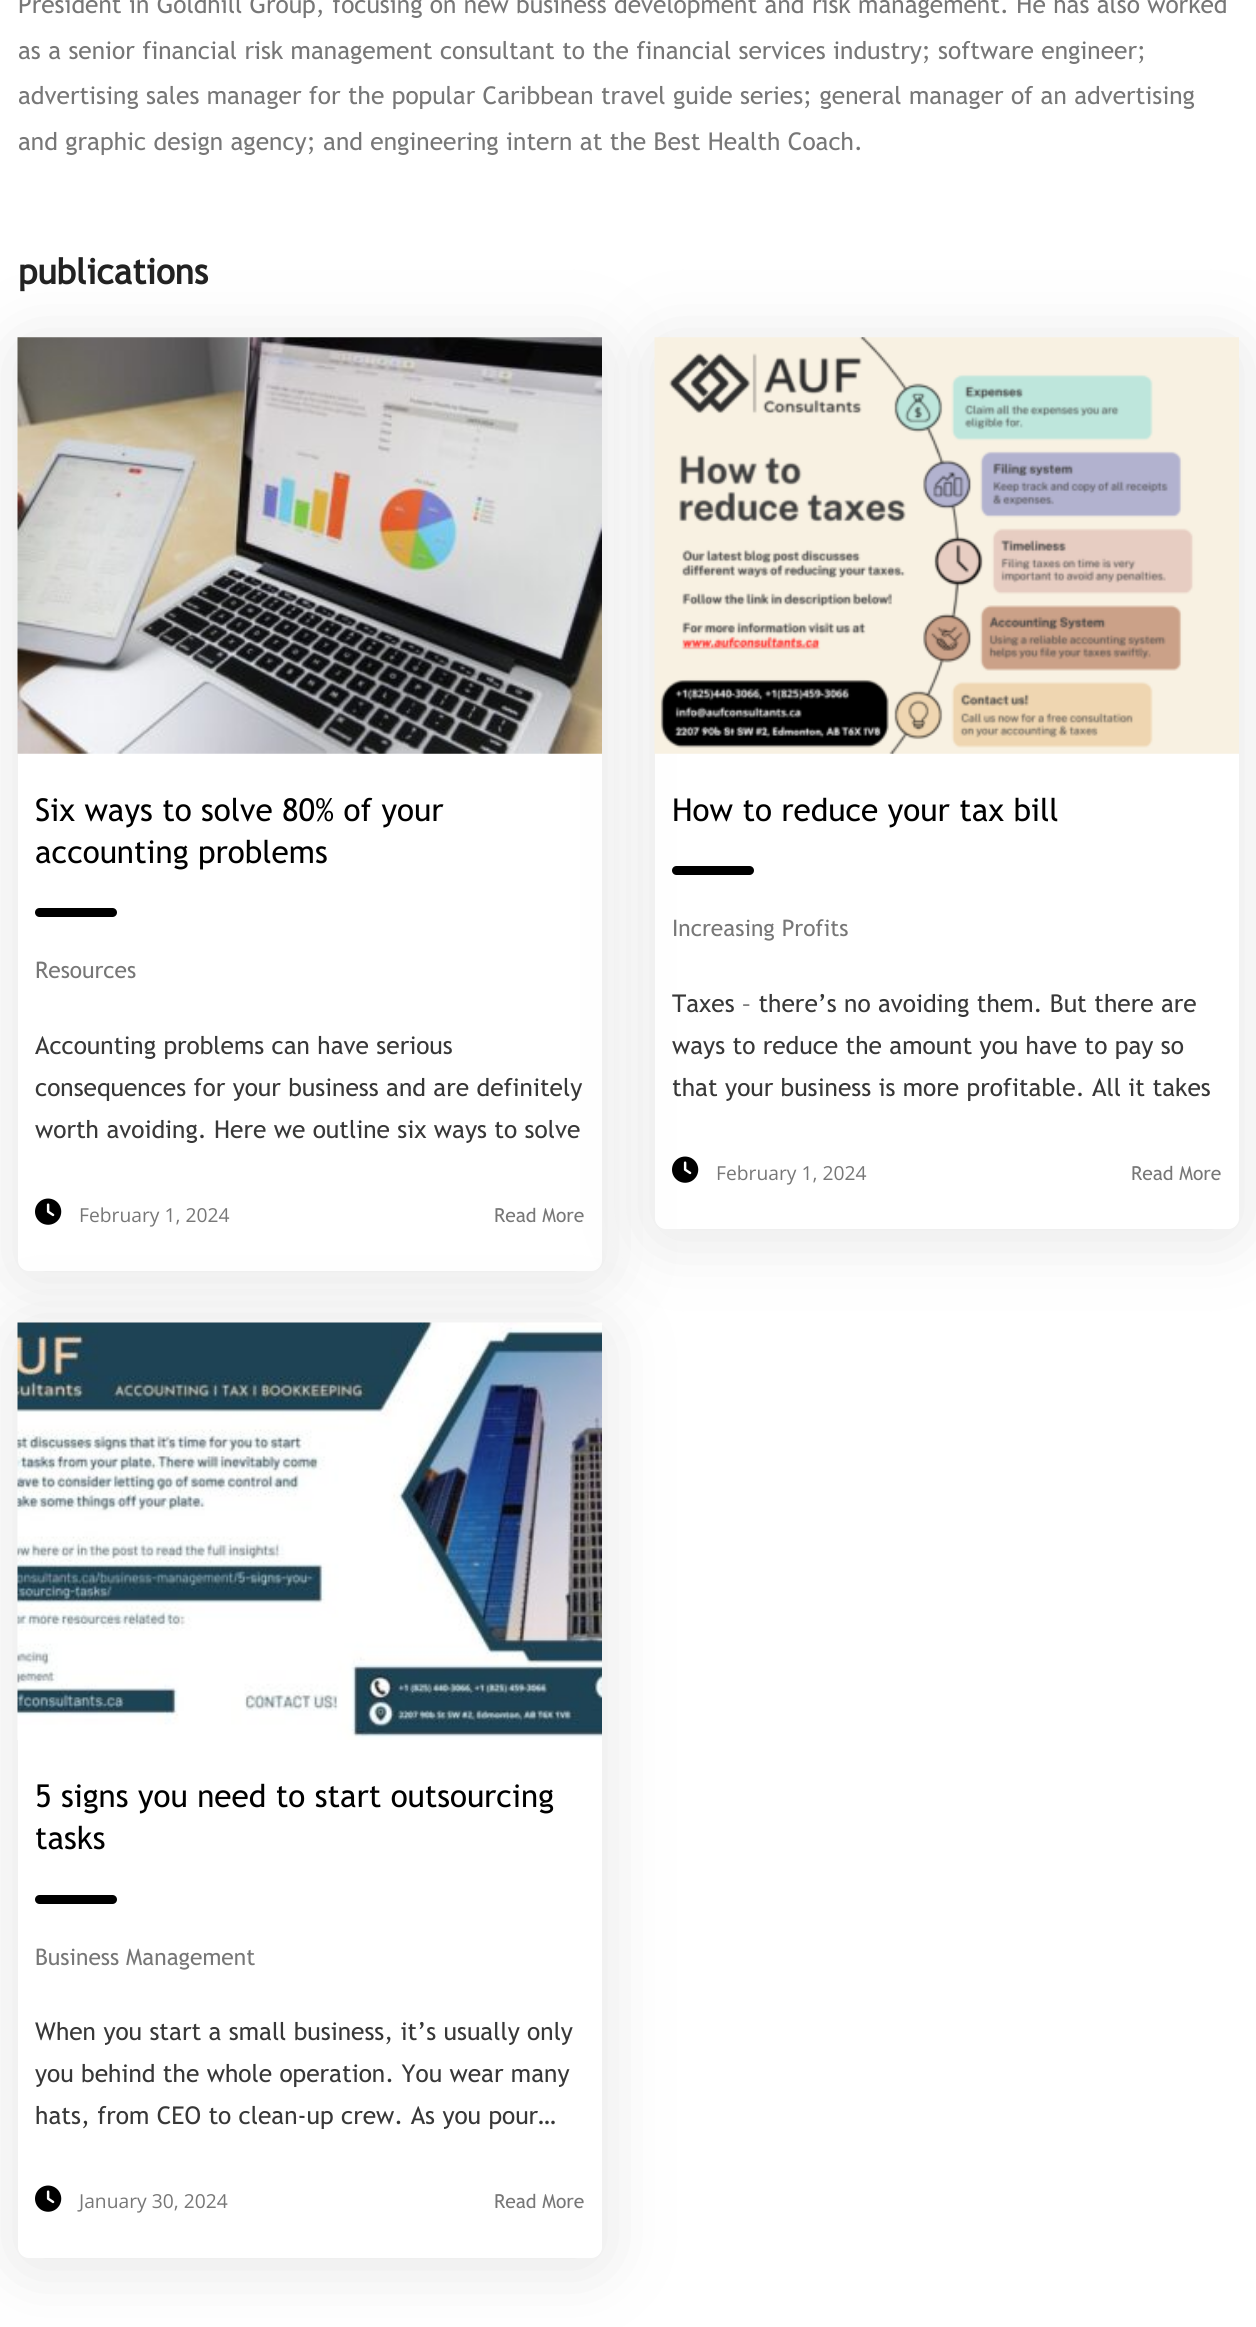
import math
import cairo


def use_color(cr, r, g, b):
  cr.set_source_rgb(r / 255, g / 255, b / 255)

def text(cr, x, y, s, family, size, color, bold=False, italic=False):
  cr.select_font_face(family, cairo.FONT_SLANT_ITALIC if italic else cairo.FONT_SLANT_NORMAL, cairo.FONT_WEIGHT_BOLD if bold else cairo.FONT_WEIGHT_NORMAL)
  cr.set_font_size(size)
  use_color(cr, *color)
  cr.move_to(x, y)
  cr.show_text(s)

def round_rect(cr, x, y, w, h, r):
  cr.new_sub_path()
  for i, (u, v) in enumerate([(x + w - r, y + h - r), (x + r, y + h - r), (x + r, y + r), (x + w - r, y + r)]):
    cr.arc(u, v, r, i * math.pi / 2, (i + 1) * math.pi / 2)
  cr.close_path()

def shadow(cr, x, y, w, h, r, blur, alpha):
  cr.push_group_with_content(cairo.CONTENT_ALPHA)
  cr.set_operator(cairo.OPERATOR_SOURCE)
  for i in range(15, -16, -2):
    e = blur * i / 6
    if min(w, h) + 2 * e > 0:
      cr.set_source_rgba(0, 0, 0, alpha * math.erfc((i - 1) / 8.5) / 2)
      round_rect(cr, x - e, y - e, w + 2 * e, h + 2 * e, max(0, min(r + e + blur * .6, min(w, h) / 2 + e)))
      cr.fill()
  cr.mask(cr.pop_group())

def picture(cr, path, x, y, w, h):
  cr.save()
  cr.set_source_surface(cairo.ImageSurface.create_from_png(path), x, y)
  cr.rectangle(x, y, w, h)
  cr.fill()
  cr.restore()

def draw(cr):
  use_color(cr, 255, 255, 255)
  cr.paint()
  cr.save()
  cr.set_fill_rule(cairo.FILL_RULE_EVEN_ODD)
  cr.new_path()
  cr.move_to(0, 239)
  cr.line_to(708, 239)
  cr.line_to(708, 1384)
  cr.line_to(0, 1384)
  cr.close_path()
  cr.move_to(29, 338)
  cr.line_to(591, 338)
  cr.curve_to(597, 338, 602, 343, 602, 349)
  cr.line_to(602, 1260)
  cr.curve_to(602, 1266, 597, 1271, 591, 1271)
  cr.line_to(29, 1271)
  cr.curve_to(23, 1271, 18, 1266, 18, 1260)
  cr.line_to(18, 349)
  cr.curve_to(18, 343, 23, 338, 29, 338)
  cr.close_path()
  cr.clip()
  use_color(cr, 229, 229, 229)
  shadow(cr, 18, 345, 584, 933, 11, 35, 1)
  cr.restore()
  cr.save()
  cr.set_fill_rule(cairo.FILL_RULE_EVEN_ODD)
  cr.new_path()
  cr.move_to(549, 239)
  cr.line_to(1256, 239)
  cr.line_to(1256, 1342)
  cr.line_to(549, 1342)
  cr.close_path()
  cr.move_to(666, 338)
  cr.line_to(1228, 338)
  cr.curve_to(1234, 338, 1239, 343, 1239, 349)
  cr.line_to(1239, 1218)
  cr.curve_to(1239, 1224, 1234, 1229, 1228, 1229)
  cr.line_to(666, 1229)
  cr.curve_to(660, 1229, 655, 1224, 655, 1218)
  cr.line_to(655, 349)
  cr.curve_to(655, 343, 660, 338, 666, 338)
  cr.close_path()
  cr.clip()
  use_color(cr, 229, 229, 229)
  shadow(cr, 655, 345, 584, 891, 11, 35, 1)
  cr.restore()
  picture(cr, "img_01.png", 17, 337, 585, 417)
  use_color(cr, 0, 0, 0)
  round_rect(cr, 35, 908, 82, 9, 4.5)
  cr.fill()
  cr.save()
  cr.set_fill_rule(cairo.FILL_RULE_EVEN_ODD)
  cr.new_path()
  cr.move_to(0, 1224)
  cr.line_to(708, 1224)
  cr.line_to(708, 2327)
  cr.line_to(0, 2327)
  cr.close_path()
  cr.move_to(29, 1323)
  cr.line_to(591, 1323)
  cr.curve_to(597, 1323, 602, 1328, 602, 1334)
  cr.line_to(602, 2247)
  cr.curve_to(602, 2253, 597, 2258, 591, 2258)
  cr.line_to(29, 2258)
  cr.curve_to(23, 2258, 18, 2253, 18, 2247)
  cr.line_to(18, 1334)
  cr.curve_to(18, 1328, 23, 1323, 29, 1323)
  cr.close_path()
  cr.clip()
  use_color(cr, 229, 229, 229)
  shadow(cr, 18, 1330, 584, 935, 11, 35, 1)
  cr.restore()
  picture(cr, "img_02.png", 35, 1198, 27, 27)
  picture(cr, "img_03.png", 654, 337, 585, 417)
  round_rect(cr, 672, 866, 82, 9, 4.5)
  cr.fill()
  picture(cr, "img_04.png", 672, 1156, 27, 27)
  picture(cr, "img_05.png", 17, 1322, 585, 418)
  round_rect(cr, 35, 1895, 82, 9, 4.5)
  cr.fill()
  picture(cr, "img_02.png", 35, 2185, 27, 27)
  text(cr, 18, 13, "President in Goldhill Group, focusing on new business development and risk management. He has also worked", "Trebuchet MS", 24.5, (119, 119, 119))
  text(cr, 18, 59, "as a senior financial risk management consultant to the financial services industry; software engineer;", "Trebuchet MS", 24.5, (119, 119, 119))
  text(cr, 18, 104, "advertising sales manager for the popular Caribbean travel guide series; general manager of an advertising", "Trebuchet MS", 24.5, (119, 119, 119))
  text(cr, 18, 150, "and graphic design agency; and engineering intern at the Best Health Coach.", "Trebuchet MS", 24.5, (119, 119, 119))
  text(cr, 18, 284, "publications", "Trebuchet MS", 35, (34, 34, 34), bold=True)
  text(cr, 35, 821, "Six ways to solve 80% of your", "Trebuchet MS", 31.5, (0, 0, 0))
  text(cr, 35, 863, "accounting problems", "Trebuchet MS", 31.5, (0, 0, 0))
  text(cr, 35, 978, "Resources", "Trebuchet MS", 22.75, (119, 119, 119))
  text(cr, 35, 1054, "Accounting problems can have serious", "Trebuchet MS", 24.5, (56, 56, 56))
  text(cr, 35, 1096, "consequences for your business and are definitely", "Trebuchet MS", 24.5, (56, 56, 56))
  text(cr, 35, 1138, "worth avoiding. Here we outline six ways to solve", "Trebuchet MS", 24.5, (56, 56, 56))
  text(cr, 79, 1222, "February 1, 2024", "Open Sans", 19.25, (119, 119, 119))
  text(cr, 494, 1222, "Read More", "Trebuchet MS", 19.25, (119, 119, 119))
  text(cr, 672, 821, "How to reduce your tax bill", "Trebuchet MS", 31.5, (0, 0, 0))
  text(cr, 672, 936, "Increasing Profits", "Trebuchet MS", 22.75, (119, 119, 119))
  text(cr, 672, 1012, "Taxes – there’s no avoiding them. But there are", "Trebuchet MS", 24.5, (56, 56, 56))
  text(cr, 672, 1054, "ways to reduce the amount you have to pay so", "Trebuchet MS", 24.5, (56, 56, 56))
  text(cr, 672, 1096, "that your business is more profitable. All it takes", "Trebuchet MS", 24.5, (56, 56, 56))
  text(cr, 716, 1180, "February 1, 2024", "Open Sans", 19.25, (119, 119, 119))
  text(cr, 1131, 1180, "Read More", "Trebuchet MS", 19.25, (119, 119, 119))
  text(cr, 35, 1807, "5 signs you need to start outsourcing", "Trebuchet MS", 31.5, (0, 0, 0))
  text(cr, 35, 1849, "tasks", "Trebuchet MS", 31.5, (0, 0, 0))
  text(cr, 35, 1965, "Business Management", "Trebuchet MS", 22.75, (119, 119, 119))
  text(cr, 35, 2040, "When you start a small business, it’s usually only", "Trebuchet MS", 24.5, (56, 56, 56))
  text(cr, 35, 2082, "you behind the whole operation. You wear many", "Trebuchet MS", 24.5, (56, 56, 56))
  text(cr, 35, 2124, "hats, from CEO to clean-up crew. As you pour…", "Trebuchet MS", 24.5, (56, 56, 56))
  text(cr, 79, 2208, "January 30, 2024", "Open Sans", 19.25, (119, 119, 119))
  text(cr, 494, 2208, "Read More", "Trebuchet MS", 19.25, (119, 119, 119))


surface = cairo.ImageSurface(cairo.FORMAT_RGB24, 1256, 2327)
cr = cairo.Context(surface)
options = cairo.FontOptions()
options.set_hint_metrics(cairo.HINT_METRICS_OFF)
options.set_hint_style(cairo.HINT_STYLE_NONE)
cr.set_font_options(options)
cr.set_miter_limit(4)
draw(cr)
surface.write_to_png("out.png")
